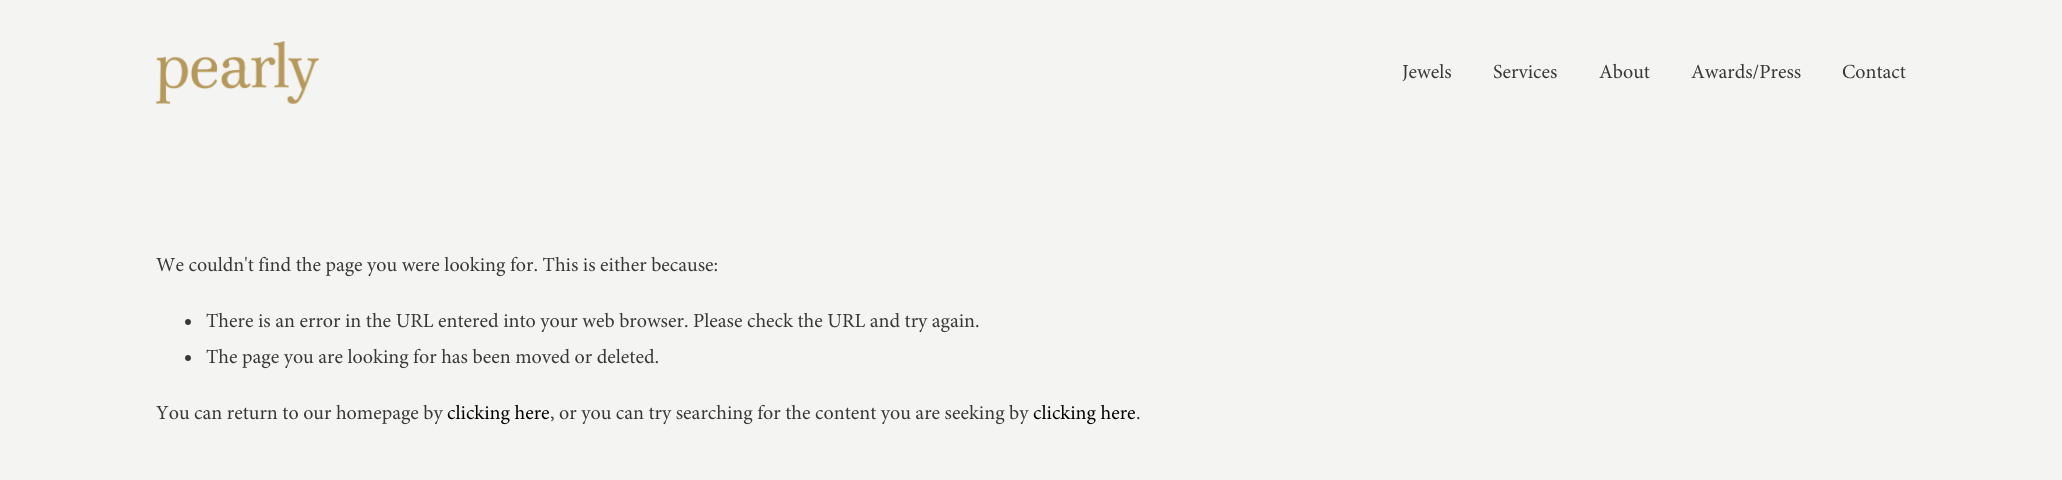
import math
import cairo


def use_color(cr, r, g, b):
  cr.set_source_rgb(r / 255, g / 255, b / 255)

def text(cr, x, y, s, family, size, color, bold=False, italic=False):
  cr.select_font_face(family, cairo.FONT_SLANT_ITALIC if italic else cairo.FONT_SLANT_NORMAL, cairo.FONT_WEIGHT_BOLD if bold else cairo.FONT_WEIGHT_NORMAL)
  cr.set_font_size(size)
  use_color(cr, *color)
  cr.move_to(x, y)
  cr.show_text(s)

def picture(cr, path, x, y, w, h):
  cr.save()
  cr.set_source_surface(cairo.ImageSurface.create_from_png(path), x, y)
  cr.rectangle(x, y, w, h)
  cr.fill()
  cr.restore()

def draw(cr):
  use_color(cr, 244, 244, 243)
  cr.paint()
  picture(cr, "img_01.png", 156, 41, 164, 63)
  use_color(cr, 56, 56, 56)
  cr.arc(188, 322, 3, 0, 2 * math.pi)
  cr.fill()
  cr.arc(188, 358, 3, 0, 2 * math.pi)
  cr.fill()
  text(cr, 1402, 78, "Jewels", "Minion", 20, (56, 56, 56))
  text(cr, 1493, 78, "Services", "Minion", 20, (56, 56, 56))
  text(cr, 1599, 78, "About", "Minion", 20, (56, 56, 56))
  text(cr, 1691, 78, "Awards/Press", "Minion", 20, (56, 56, 56))
  text(cr, 1842, 78, "Contact", "Minion", 20, (56, 56, 56))
  text(cr, 156, 271, "We couldn't find the page you were looking for. This is either because:", "Minion", 20, (56, 56, 56))
  text(cr, 206, 327, "There is an error in the URL entered into your web browser. Please check the URL and try again.", "Minion", 20, (56, 56, 56))
  text(cr, 206, 363, "The page you are looking for has been moved or deleted.", "Minion", 20, (56, 56, 56))
  text(cr, 156, 419, "You can return to our homepage by", "Minion", 20, (56, 56, 56))
  text(cr, 447, 419, "clicking here", "Minion", 20, (0, 0, 0))
  text(cr, 550, 419, ", or you can try searching for the content you are seeking by", "Minion", 20, (56, 56, 56))
  text(cr, 1033, 419, "clicking here", "Minion", 20, (0, 0, 0))
  text(cr, 1136, 419, ".", "Minion", 20, (56, 56, 56))


surface = cairo.ImageSurface(cairo.FORMAT_RGB24, 2062, 480)
cr = cairo.Context(surface)
options = cairo.FontOptions()
options.set_hint_metrics(cairo.HINT_METRICS_OFF)
options.set_hint_style(cairo.HINT_STYLE_NONE)
cr.set_font_options(options)
cr.set_miter_limit(4)
draw(cr)
surface.write_to_png("out.png")
